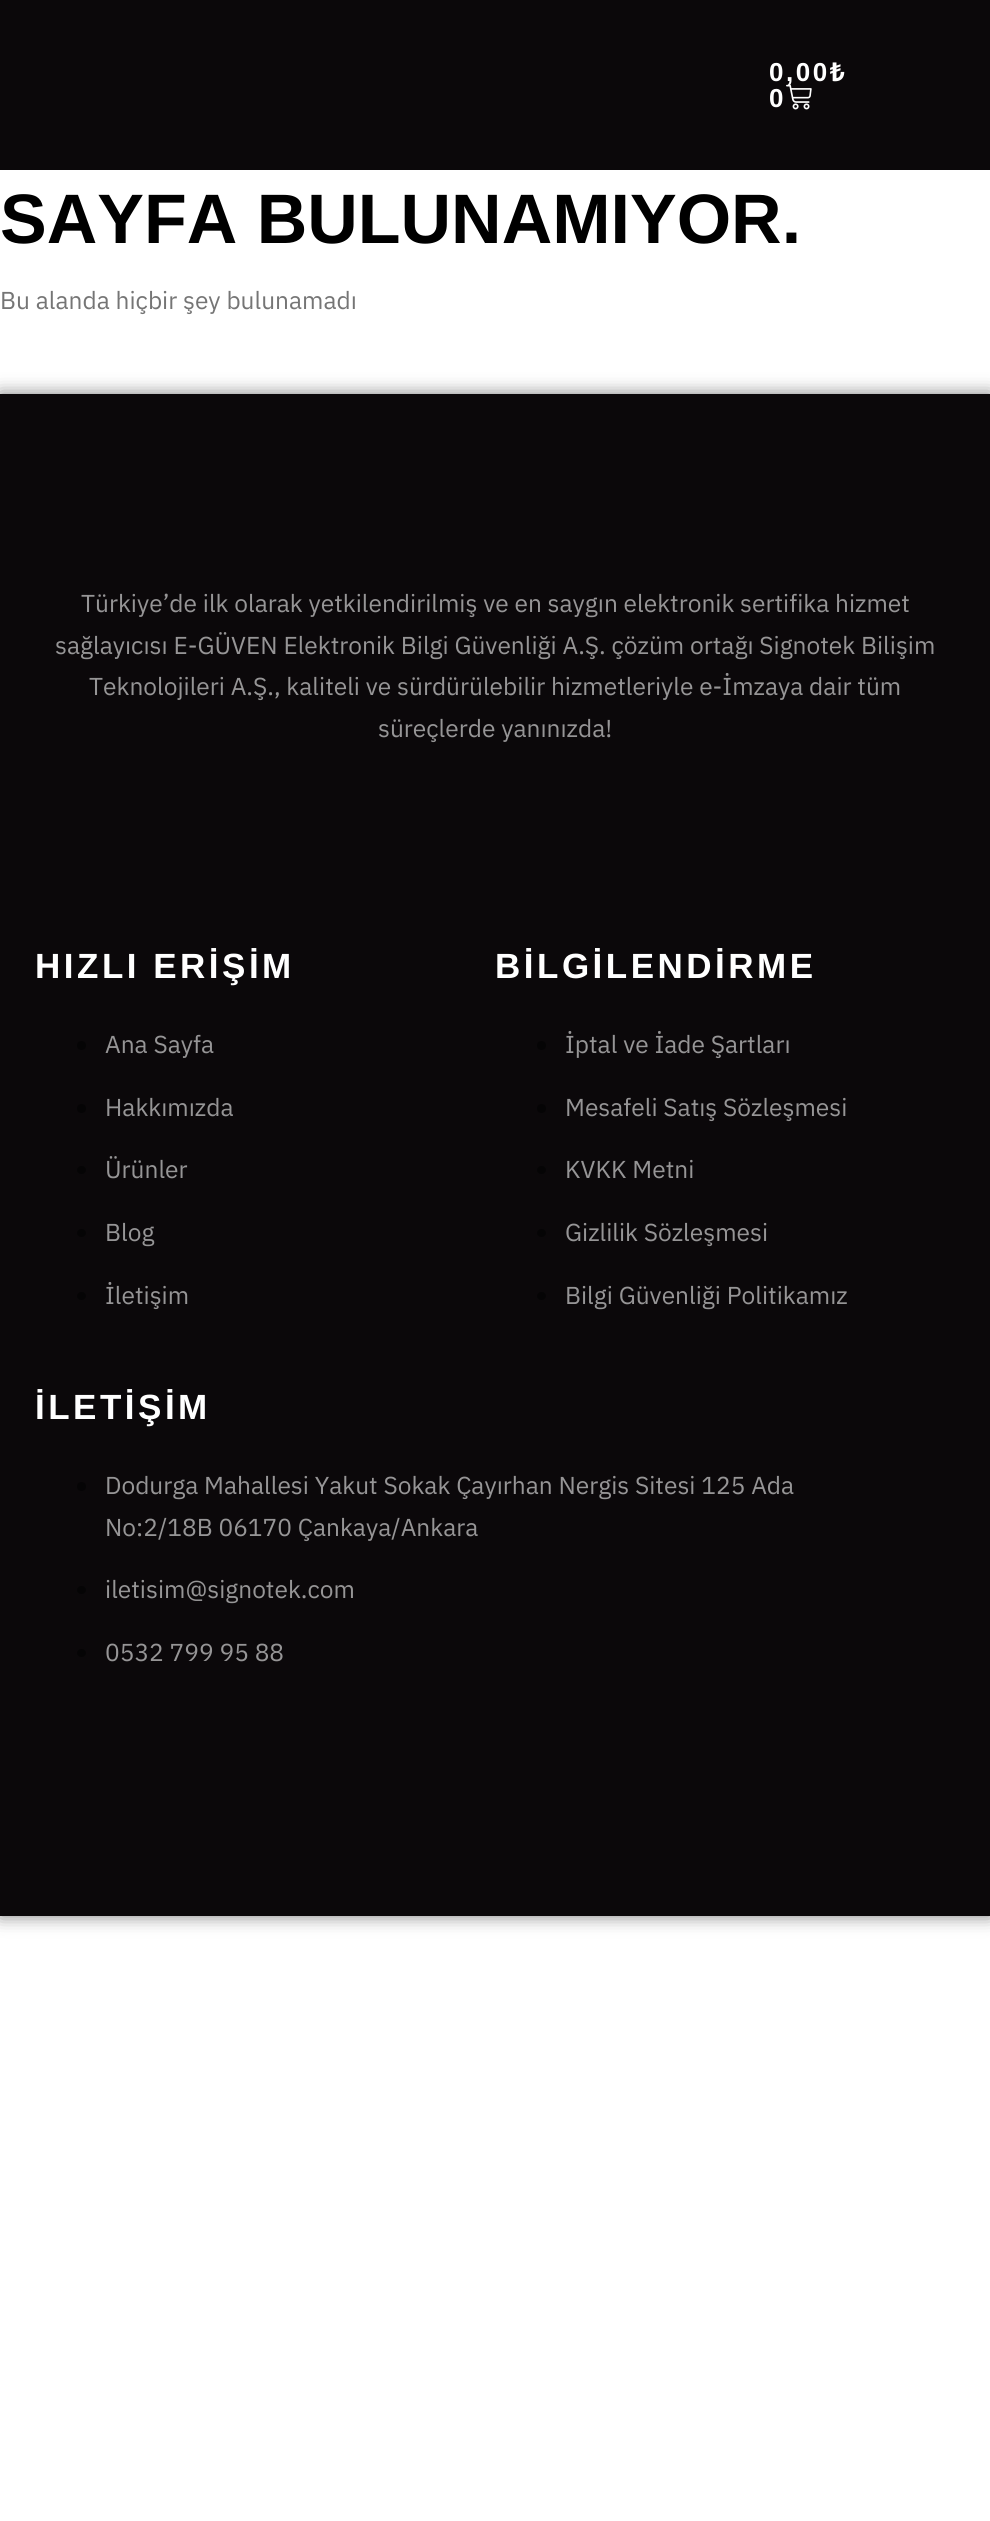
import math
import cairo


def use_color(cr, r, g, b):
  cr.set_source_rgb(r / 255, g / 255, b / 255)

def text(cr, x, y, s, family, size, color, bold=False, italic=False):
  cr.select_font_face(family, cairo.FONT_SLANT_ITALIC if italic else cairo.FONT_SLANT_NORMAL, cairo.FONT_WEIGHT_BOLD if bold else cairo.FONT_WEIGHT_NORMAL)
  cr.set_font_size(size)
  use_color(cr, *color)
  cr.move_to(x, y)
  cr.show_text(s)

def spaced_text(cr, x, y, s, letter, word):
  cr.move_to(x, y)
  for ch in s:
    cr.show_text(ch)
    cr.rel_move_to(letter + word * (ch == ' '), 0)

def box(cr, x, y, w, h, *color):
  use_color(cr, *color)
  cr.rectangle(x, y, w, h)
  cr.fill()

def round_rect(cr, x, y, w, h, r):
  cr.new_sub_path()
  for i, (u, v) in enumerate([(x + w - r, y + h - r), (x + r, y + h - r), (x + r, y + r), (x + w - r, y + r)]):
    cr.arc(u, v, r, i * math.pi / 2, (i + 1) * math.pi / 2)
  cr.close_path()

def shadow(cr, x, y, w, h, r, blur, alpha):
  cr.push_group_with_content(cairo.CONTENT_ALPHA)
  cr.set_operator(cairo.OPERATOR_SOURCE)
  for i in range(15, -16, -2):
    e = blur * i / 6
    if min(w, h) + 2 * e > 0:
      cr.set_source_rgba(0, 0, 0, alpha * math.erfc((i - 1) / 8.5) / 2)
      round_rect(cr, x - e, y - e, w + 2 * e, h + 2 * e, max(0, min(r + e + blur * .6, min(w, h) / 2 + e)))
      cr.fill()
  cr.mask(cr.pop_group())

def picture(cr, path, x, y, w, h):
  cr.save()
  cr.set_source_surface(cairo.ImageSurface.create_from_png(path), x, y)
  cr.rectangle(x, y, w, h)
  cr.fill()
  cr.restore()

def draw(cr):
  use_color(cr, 255, 255, 255)
  cr.paint()
  box(cr, 0, 0, 990, 170, 11, 8, 10)
  use_color(cr, 0, 0, 0)
  shadow(cr, 0, 394, 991, 1522, 0, 9, 0.5)
  box(cr, 0, 394, 990, 1522, 11, 8, 10)
  use_color(cr, 5, 4, 5)
  cr.arc(81.5, 1045.5, 4.5, 0, 2 * math.pi)
  cr.fill()
  cr.arc(81.5, 1108.5, 4.5, 0, 2 * math.pi)
  cr.fill()
  round_rect(cr, 77, 1166, 9, 8, 4)
  cr.fill()
  round_rect(cr, 77, 1229, 9, 8, 4)
  cr.fill()
  round_rect(cr, 77, 1292, 9, 8, 4)
  cr.fill()
  cr.arc(541.5, 1045.5, 4.5, 0, 2 * math.pi)
  cr.fill()
  cr.arc(541.5, 1108.5, 4.5, 0, 2 * math.pi)
  cr.fill()
  round_rect(cr, 537, 1166, 9, 8, 4)
  cr.fill()
  round_rect(cr, 537, 1229, 9, 8, 4)
  cr.fill()
  round_rect(cr, 537, 1292, 9, 8, 4)
  cr.fill()
  cr.arc(81.5, 1486.5, 4.5, 0, 2 * math.pi)
  cr.fill()
  round_rect(cr, 77, 1586, 9, 8, 4)
  cr.fill()
  round_rect(cr, 77, 1649, 9, 8, 4)
  cr.fill()
  cr.select_font_face("Liberation Sans", cairo.FONT_SLANT_NORMAL, cairo.FONT_WEIGHT_BOLD)
  cr.set_font_size(26)
  use_color(cr, 255, 255, 255)
  spaced_text(cr, 769, 81, "0,00", 2.5, 0)
  cr.select_font_face("Noto Sans", cairo.FONT_SLANT_NORMAL, cairo.FONT_WEIGHT_BOLD)
  spaced_text(cr, 830, 81, "₺", 2.5, 0)
  cr.select_font_face("Liberation Sans", cairo.FONT_SLANT_NORMAL, cairo.FONT_WEIGHT_BOLD)
  spaced_text(cr, 769, 107, "0", 2.5, 0)
  picture(cr, "img_01.png", 786, 84, 26, 26)
  text(cr, 0, 243, "SAYFA BULUNAMIYOR.", "Liberation Sans", 70, (0, 0, 0), bold=True)
  text(cr, 0, 309, "Bu alanda hiçbir şey bulunamadı", "IBM Plex Sans", 24.5, (117, 117, 117))
  text(cr, 81, 612, "Türkiye’de ilk olarak yetkilendirilmiş ve en saygın elektronik sertifika hizmet", "IBM Plex Sans", 24.5, (150, 149, 150))
  text(cr, 55, 654, "sağlayıcısı E-GÜVEN Elektronik Bilgi Güvenliği A.Ş. çözüm ortağı Signotek Bilişim", "IBM Plex Sans", 24.5, (150, 149, 150))
  text(cr, 89, 695, "Teknolojileri A.Ş., kaliteli ve sürdürülebilir hizmetleriyle e-İmzaya dair tüm", "IBM Plex Sans", 24.5, (150, 149, 150))
  text(cr, 378, 737, "süreçlerde yanınızda!", "IBM Plex Sans", 24.5, (150, 149, 150))
  cr.select_font_face("Liberation Sans", cairo.FONT_SLANT_NORMAL, cairo.FONT_WEIGHT_BOLD)
  cr.set_font_size(35)
  use_color(cr, 255, 255, 255)
  spaced_text(cr, 35, 978, "HIZLI ERİŞİM", 3.5, 0)
  text(cr, 105, 1053, "Ana Sayfa", "IBM Plex Sans", 24.5, (150, 149, 150))
  text(cr, 105, 1116, "Hakkımızda", "IBM Plex Sans", 24.5, (150, 149, 150))
  text(cr, 105, 1178, "Ürünler", "IBM Plex Sans", 24.5, (150, 149, 150))
  text(cr, 105, 1241, "Blog", "IBM Plex Sans", 24.5, (150, 149, 150))
  text(cr, 105, 1304, "İletişim", "IBM Plex Sans", 24.5, (150, 149, 150))
  cr.select_font_face("Liberation Sans", cairo.FONT_SLANT_NORMAL, cairo.FONT_WEIGHT_BOLD)
  cr.set_font_size(35)
  use_color(cr, 255, 255, 255)
  spaced_text(cr, 495, 978, "BİLGİLENDİRME", 3.5, 0)
  text(cr, 565, 1053, "İptal ve İade Şartları", "IBM Plex Sans", 24.5, (150, 149, 150))
  text(cr, 565, 1116, "Mesafeli Satış Sözleşmesi", "IBM Plex Sans", 24.5, (150, 149, 150))
  text(cr, 565, 1178, "KVKK Metni", "IBM Plex Sans", 24.5, (150, 149, 150))
  text(cr, 565, 1241, "Gizlilik Sözleşmesi", "IBM Plex Sans", 24.5, (150, 149, 150))
  text(cr, 565, 1304, "Bilgi Güvenliği Politikamız", "IBM Plex Sans", 24.5, (150, 149, 150))
  cr.select_font_face("Liberation Sans", cairo.FONT_SLANT_NORMAL, cairo.FONT_WEIGHT_BOLD)
  cr.set_font_size(35)
  use_color(cr, 255, 255, 255)
  spaced_text(cr, 35, 1419, "İLETİŞİM", 3.5, 0)
  text(cr, 105, 1494, "Dodurga Mahallesi Yakut Sokak Çayırhan Nergis Sitesi 125 Ada", "IBM Plex Sans", 24.5, (150, 149, 150))
  text(cr, 105, 1536, "No:2/18B 06170 Çankaya/Ankara", "IBM Plex Sans", 24.5, (150, 149, 150))
  text(cr, 105, 1598, "iletisim@signotek.com", "IBM Plex Sans", 24.5, (150, 149, 150))
  text(cr, 105, 1661, "0532 799 95 88", "IBM Plex Sans", 24.5, (150, 149, 150))


surface = cairo.ImageSurface(cairo.FORMAT_RGB24, 990, 2521)
cr = cairo.Context(surface)
options = cairo.FontOptions()
options.set_hint_metrics(cairo.HINT_METRICS_OFF)
options.set_hint_style(cairo.HINT_STYLE_NONE)
cr.set_font_options(options)
cr.set_miter_limit(4)
draw(cr)
surface.write_to_png("out.png")
